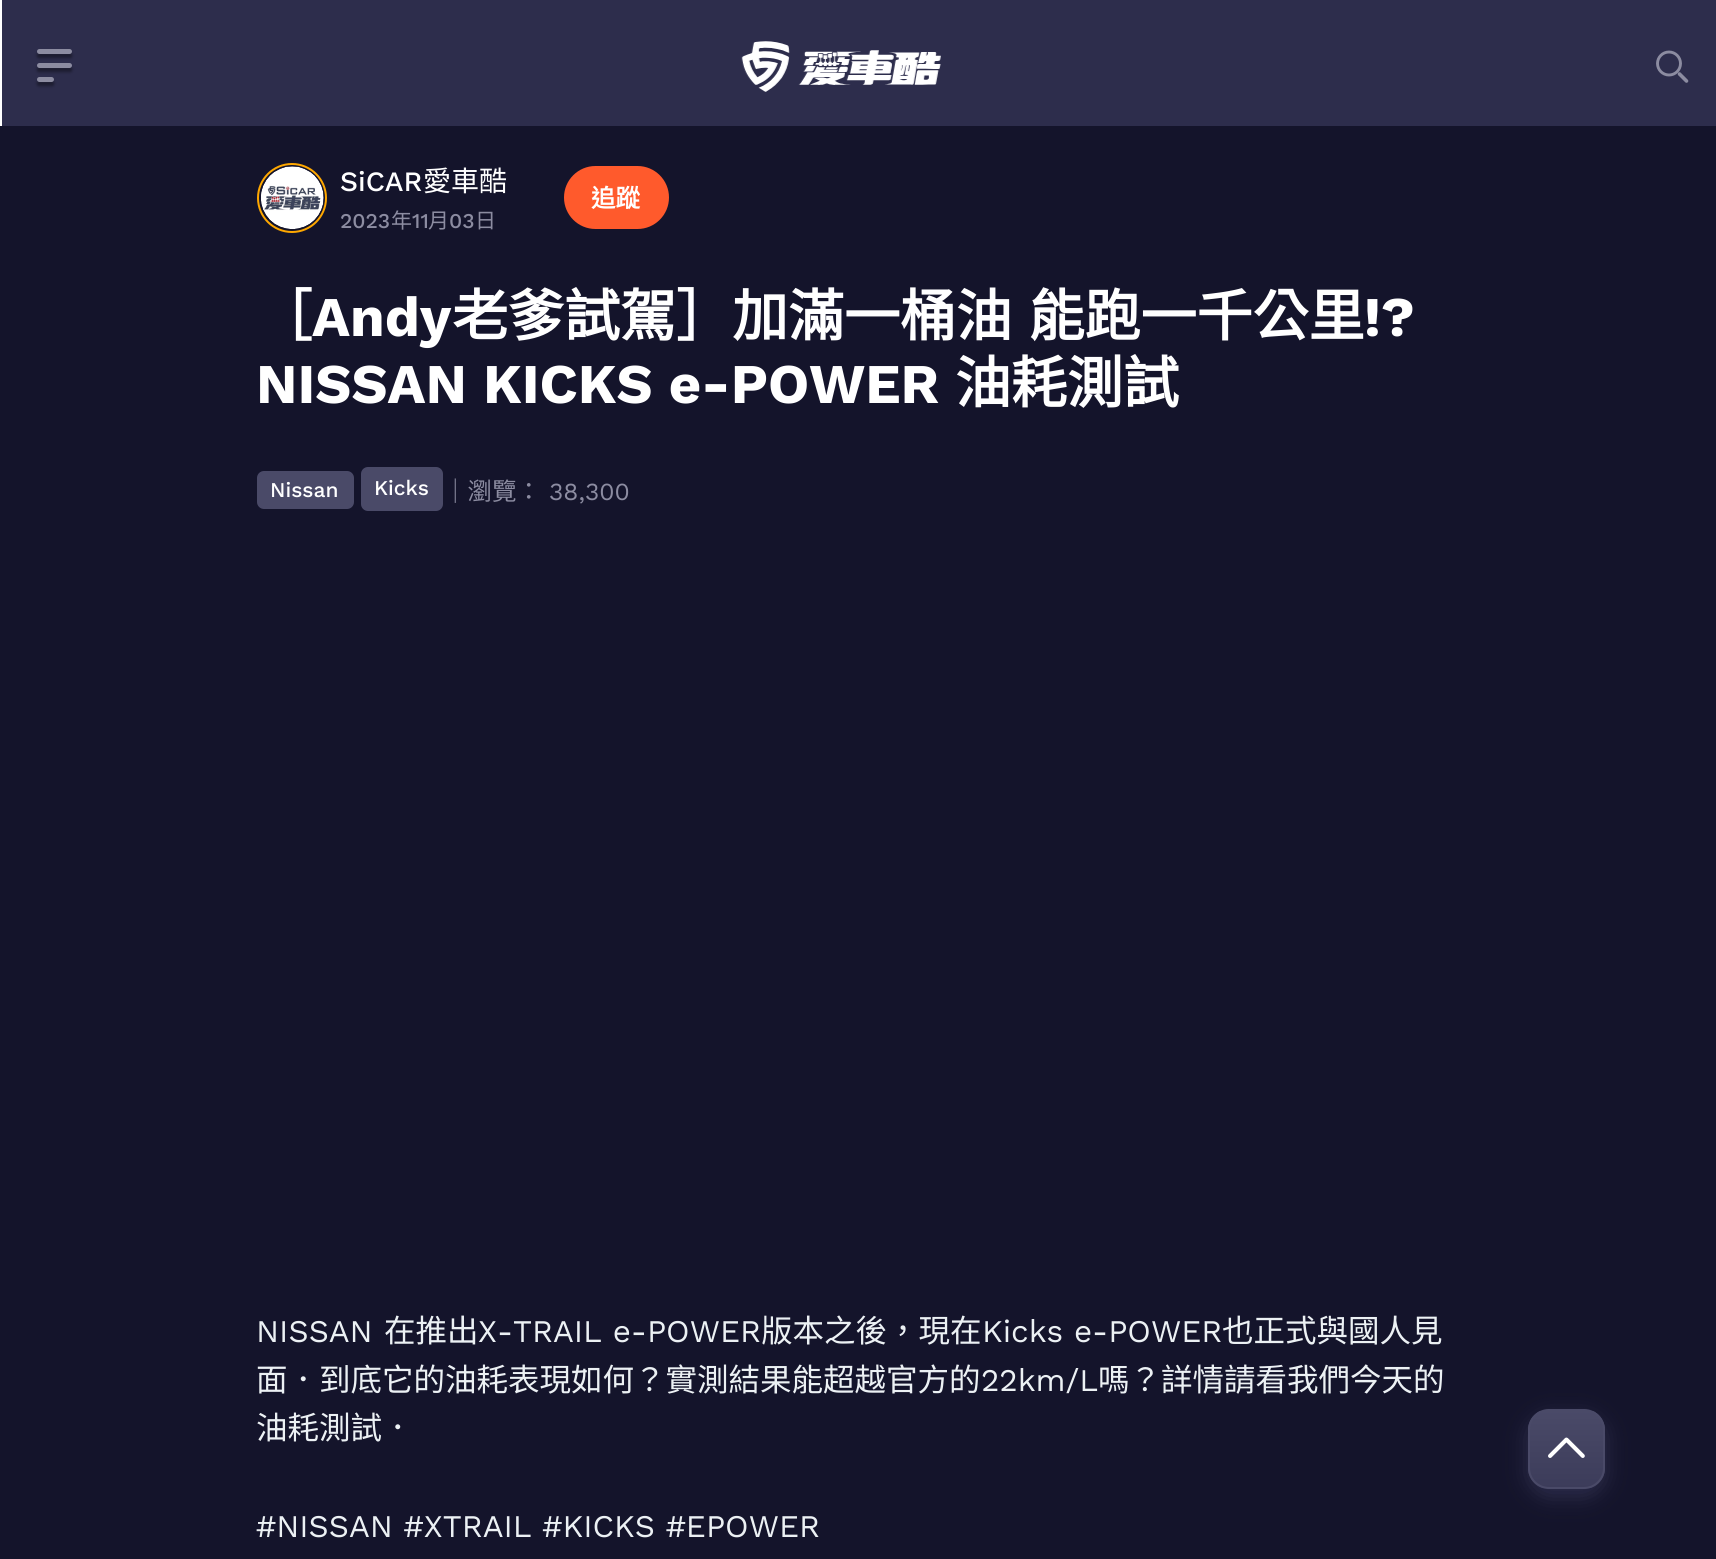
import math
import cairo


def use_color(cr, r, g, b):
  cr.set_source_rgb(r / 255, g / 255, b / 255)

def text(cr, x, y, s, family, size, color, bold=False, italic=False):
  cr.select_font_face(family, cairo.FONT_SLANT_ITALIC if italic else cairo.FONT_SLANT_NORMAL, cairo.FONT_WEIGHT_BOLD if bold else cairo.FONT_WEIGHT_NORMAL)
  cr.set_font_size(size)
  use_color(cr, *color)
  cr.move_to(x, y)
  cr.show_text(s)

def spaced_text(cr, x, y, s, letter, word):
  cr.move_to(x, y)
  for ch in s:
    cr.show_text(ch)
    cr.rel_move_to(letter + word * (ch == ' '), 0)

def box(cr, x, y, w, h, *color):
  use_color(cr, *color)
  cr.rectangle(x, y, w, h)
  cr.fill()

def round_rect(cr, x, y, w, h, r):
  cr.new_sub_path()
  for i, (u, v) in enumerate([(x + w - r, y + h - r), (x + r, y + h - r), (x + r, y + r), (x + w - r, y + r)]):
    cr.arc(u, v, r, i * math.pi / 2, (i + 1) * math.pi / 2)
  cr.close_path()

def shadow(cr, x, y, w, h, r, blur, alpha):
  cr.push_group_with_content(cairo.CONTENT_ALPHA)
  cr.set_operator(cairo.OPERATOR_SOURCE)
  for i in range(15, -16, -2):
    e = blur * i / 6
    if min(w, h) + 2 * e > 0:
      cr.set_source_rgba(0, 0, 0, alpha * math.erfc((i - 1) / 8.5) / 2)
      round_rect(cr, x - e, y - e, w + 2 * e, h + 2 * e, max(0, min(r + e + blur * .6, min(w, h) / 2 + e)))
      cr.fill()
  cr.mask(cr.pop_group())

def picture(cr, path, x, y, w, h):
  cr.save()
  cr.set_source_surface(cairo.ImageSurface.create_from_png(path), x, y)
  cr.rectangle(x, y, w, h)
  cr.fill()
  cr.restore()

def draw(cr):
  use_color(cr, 255, 255, 255)
  cr.paint()
  box(cr, 0, 126, 1716, 1433, 20, 20, 43)
  box(cr, 2, 0, 1714, 126, 45, 45, 76)
  use_color(cr, 0, 0, 0)
  shadow(cr, 37, 53, 35, 5, 2.5, 1.5, 0.38)
  use_color(cr, 140, 140, 161)
  round_rect(cr, 37, 49, 35, 5, 2.5)
  cr.fill()
  use_color(cr, 0, 0, 0)
  shadow(cr, 37, 67, 35, 5, 2.5, 1.5, 0.38)
  use_color(cr, 140, 140, 161)
  round_rect(cr, 37, 63, 35, 5, 2.5)
  cr.fill()
  use_color(cr, 0, 0, 0)
  shadow(cr, 37, 81, 17, 5, 2.5, 1.5, 0.38)
  use_color(cr, 140, 140, 161)
  round_rect(cr, 37, 77, 17, 5, 2.5)
  cr.fill()
  picture(cr, "img_01.png", 741, 41, 200, 51)
  cr.new_path()
  cr.move_to(1679.5, 74)
  cr.line_to(1686.5, 81)
  cr.set_line_width(3.6)
  cr.set_line_cap(cairo.LINE_CAP_ROUND)
  cr.set_line_join(cairo.LINE_JOIN_ROUND)
  cr.stroke()
  cr.arc(1669, 63.5, 11.5, 0, 2 * math.pi)
  cr.set_line_width(2.9)
  cr.set_line_cap(cairo.LINE_CAP_BUTT)
  cr.set_line_join(cairo.LINE_JOIN_MITER)
  cr.stroke()
  cr.arc(292, 198, 34, 0, 2 * math.pi)
  use_color(cr, 255, 168, 0)
  cr.set_line_width(2)
  cr.stroke()
  picture(cr, "img_02.png", 261, 166, 63, 63)
  use_color(cr, 255, 90, 44)
  round_rect(cr, 564, 166, 105, 63, 31.5)
  cr.fill()
  use_color(cr, 74, 74, 104)
  round_rect(cr, 257, 471, 97, 38, 7)
  cr.fill()
  round_rect(cr, 361, 467, 82, 44, 7)
  cr.fill()
  use_color(cr, 45, 45, 76)
  shadow(cr, 1528, 1416, 77, 80, 21, 10.5, 1)
  cr.save()
  round_rect(cr, 1528, 1409, 77, 80, 21)
  cr.clip()
  gradient = cairo.LinearGradient(1566, 1411, 1566, 1488)
  gradient.add_color_stop_rgba(0, 0.29, 0.29, 0.408, 1)
  gradient.add_color_stop_rgba(1, 0.235, 0.235, 0.353, 1)
  cr.set_source(gradient)
  cr.rectangle(1528, 1411, 77, 77)
  cr.fill()
  cr.restore()
  round_rect(cr, 1529, 1410, 75, 78, 20)
  use_color(cr, 74, 74, 104)
  cr.stroke()
  picture(cr, "img_03.png", 1548, 1437, 37, 21)
  text(cr, 340, 191, "SiCAR", "Work Sans Medium", 28, (255, 255, 255))
  text(cr, 423, 191, "愛車酷", "Noto Sans CJK TC", 28, (255, 255, 255))
  text(cr, 340, 228, "2023", "Work Sans Medium", 21, (140, 140, 161))
  text(cr, 391, 228, "年", "Noto Sans CJK TC", 21, (140, 140, 161))
  text(cr, 412, 228, "11", "Work Sans Medium", 21, (140, 140, 161))
  text(cr, 428, 228, "月", "Noto Sans CJK TC", 21, (140, 140, 161))
  text(cr, 449, 228, "03", "Work Sans Medium", 21, (140, 140, 161))
  text(cr, 475, 228, "日", "Noto Sans CJK TC", 21, (140, 140, 161))
  text(cr, 591, 207, "追蹤", "Noto Sans CJK TC", 24.5, (255, 255, 255), bold=True)
  text(cr, 256, 336, "［", "Noto Sans CJK TC", 56, (255, 255, 255), bold=True)
  text(cr, 312, 336, "Andy", "Work Sans", 56, (255, 255, 255), bold=True)
  cr.select_font_face("Noto Sans CJK TC", cairo.FONT_SLANT_NORMAL, cairo.FONT_WEIGHT_BOLD)
  spaced_text(cr, 452, 336, "老爹試駕］加滿一桶油 能跑一千公里", 0, 4)
  text(cr, 1364, 336, "!?", "Work Sans", 56, (255, 255, 255), bold=True)
  text(cr, 256, 403, "NISSAN KICKS e-POWER", "Work Sans", 56, (255, 255, 255), bold=True)
  text(cr, 955, 403, "油耗測試", "Noto Sans CJK TC", 56, (255, 255, 255), bold=True)
  text(cr, 270, 497, "Nissan", "Work Sans Medium", 21, (255, 255, 255))
  text(cr, 374, 495, "Kicks", "Work Sans Medium", 21, (255, 255, 255))
  text(cr, 443, 500, "｜瀏覽：", "Noto Sans CJK TC", 24.5, (140, 140, 161))
  text(cr, 549, 500, "38,300", "Work Sans", 24.5, (140, 140, 161))
  text(cr, 256, 1342, "NISSAN", "Work Sans", 31.5, (236, 241, 244))
  text(cr, 384, 1342, "在推出", "Noto Sans CJK TC", 31.5, (236, 241, 244))
  text(cr, 478, 1342, "X-TRAIL e-POWER", "Work Sans", 31.5, (236, 241, 244))
  text(cr, 761, 1342, "版本之後，現在", "Noto Sans CJK TC", 31.5, (236, 241, 244))
  text(cr, 982, 1342, "Kicks e-POWER", "Work Sans", 31.5, (236, 241, 244))
  text(cr, 1222, 1342, "也正式與國人見", "Noto Sans CJK TC", 31.5, (236, 241, 244))
  text(cr, 256, 1391, "面．到底它的油耗表現如何？實測結果能超越官方的", "Noto Sans CJK TC", 31.5, (236, 241, 244))
  text(cr, 981, 1391, "22km/L", "Work Sans", 31.5, (236, 241, 244))
  text(cr, 1098, 1391, "嗎？詳情請看我們今天的", "Noto Sans CJK TC", 31.5, (236, 241, 244))
  text(cr, 256, 1439, "油耗測試．", "Noto Sans CJK TC", 31.5, (236, 241, 244))
  text(cr, 256, 1537, "#NISSAN #XTRAIL #KICKS #EPOWER", "Work Sans", 31.5, (236, 241, 244))


surface = cairo.ImageSurface(cairo.FORMAT_RGB24, 1716, 1559)
cr = cairo.Context(surface)
options = cairo.FontOptions()
options.set_hint_metrics(cairo.HINT_METRICS_OFF)
options.set_hint_style(cairo.HINT_STYLE_NONE)
cr.set_font_options(options)
cr.set_miter_limit(4)
draw(cr)
surface.write_to_png("out.png")
